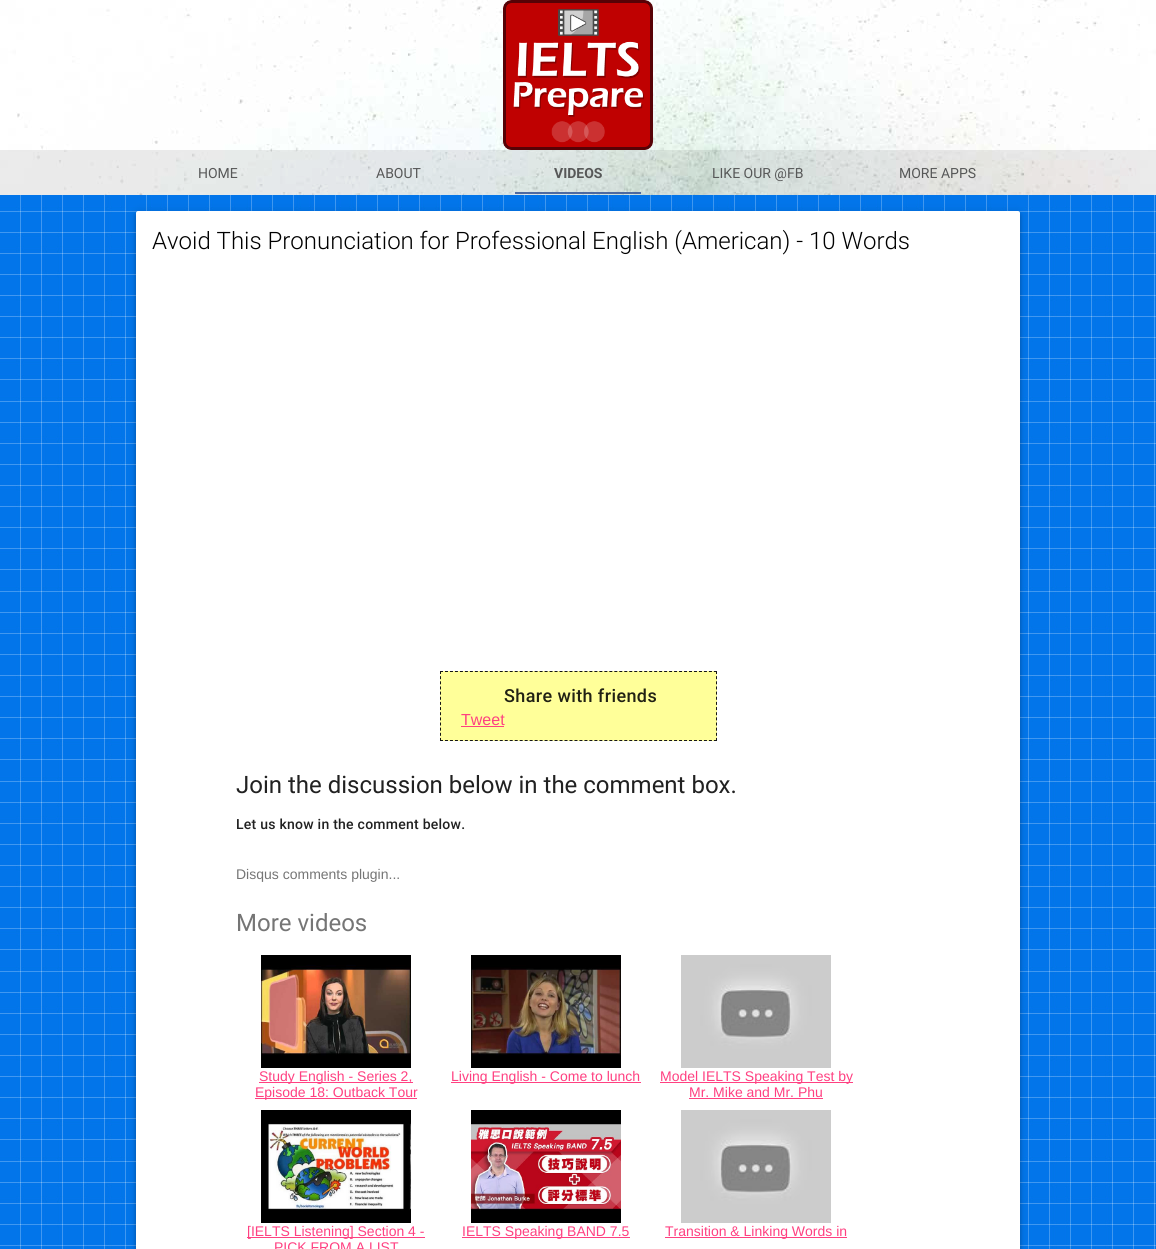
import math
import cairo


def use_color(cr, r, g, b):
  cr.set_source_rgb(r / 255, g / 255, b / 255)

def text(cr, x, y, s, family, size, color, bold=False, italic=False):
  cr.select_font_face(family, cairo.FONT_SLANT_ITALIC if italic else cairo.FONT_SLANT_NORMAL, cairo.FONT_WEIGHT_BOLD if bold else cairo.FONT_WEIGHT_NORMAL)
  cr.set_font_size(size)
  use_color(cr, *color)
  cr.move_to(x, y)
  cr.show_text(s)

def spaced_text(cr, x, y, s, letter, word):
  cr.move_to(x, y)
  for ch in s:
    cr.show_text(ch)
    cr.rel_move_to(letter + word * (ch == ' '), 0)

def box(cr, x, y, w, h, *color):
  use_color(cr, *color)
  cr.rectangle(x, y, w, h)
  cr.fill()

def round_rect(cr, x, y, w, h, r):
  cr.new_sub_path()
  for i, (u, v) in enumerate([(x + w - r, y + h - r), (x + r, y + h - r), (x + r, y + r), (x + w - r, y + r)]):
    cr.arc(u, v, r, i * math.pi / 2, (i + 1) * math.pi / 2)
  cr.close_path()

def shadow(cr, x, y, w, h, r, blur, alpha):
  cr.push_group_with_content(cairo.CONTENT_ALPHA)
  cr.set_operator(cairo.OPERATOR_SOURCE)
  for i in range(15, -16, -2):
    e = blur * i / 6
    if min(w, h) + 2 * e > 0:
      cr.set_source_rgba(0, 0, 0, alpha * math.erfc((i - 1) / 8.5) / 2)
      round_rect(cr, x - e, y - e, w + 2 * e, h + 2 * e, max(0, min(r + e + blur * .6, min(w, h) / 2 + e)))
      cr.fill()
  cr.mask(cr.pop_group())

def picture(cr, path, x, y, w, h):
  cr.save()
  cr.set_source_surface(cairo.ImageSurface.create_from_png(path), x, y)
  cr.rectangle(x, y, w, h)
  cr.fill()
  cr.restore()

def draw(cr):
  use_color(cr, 255, 255, 255)
  cr.paint()
  picture(cr, "img_01.png", 0, 195, 1156, 1054)
  picture(cr, "img_02.png", 0, 0, 1156, 195)
  picture(cr, "img_03.png", 503, 0, 150, 150)
  cr.set_source_rgba(0, 0, 0, 0.08)
  cr.rectangle(0, 150, 1156, 45)
  cr.fill()
  cr.set_source_rgba(0.231, 0.349, 0.596, 0.87)
  cr.rectangle(515, 192, 126, 2)
  cr.fill()
  use_color(cr, 0, 0, 0)
  shadow(cr, 137, 214, 882, 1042, 1, 2, 0.2)
  shadow(cr, 136, 212, 884, 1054, 2, 5, 0.12)
  shadow(cr, 136, 215, 884, 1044, 2, 2.5, 0.14)
  use_color(cr, 255, 255, 255)
  cr.new_path()
  cr.move_to(138, 211)
  cr.line_to(1018, 211)
  cr.curve_to(1019, 211, 1020, 212, 1020, 213)
  cr.line_to(1020, 1249)
  cr.line_to(136, 1249)
  cr.line_to(136, 213)
  cr.curve_to(136, 212, 137, 211, 138, 211)
  cr.close_path()
  cr.fill()
  box(cr, 440, 671, 277, 70, 255, 255, 153)
  cr.new_path()
  cr.move_to(440, 671.5)
  cr.line_to(717, 671.5)
  use_color(cr, 22, 22, 22)
  cr.set_line_width(1)
  cr.set_dash([3, 1.98])
  cr.stroke()
  cr.new_path()
  cr.move_to(716.5, 671)
  cr.line_to(716.5, 741)
  cr.set_dash([3, 2.15])
  cr.stroke()
  cr.new_path()
  cr.move_to(440, 740.5)
  cr.line_to(717, 740.5)
  cr.set_dash([3, 1.98])
  cr.stroke()
  cr.new_path()
  cr.move_to(440.5, 671)
  cr.line_to(440.5, 741)
  cr.set_dash([3, 2.15])
  cr.stroke()
  box(cr, 461, 726, 43, 1, 255, 64, 129)
  picture(cr, "img_04.png", 261, 955, 150, 113)
  box(cr, 259, 1082, 154, 1, 255, 64, 129)
  box(cr, 255, 1098, 162, 1, 255, 64, 129)
  picture(cr, "img_05.png", 471, 955, 150, 113)
  box(cr, 451, 1082, 190, 1, 255, 64, 129)
  picture(cr, "img_06.png", 681, 955, 150, 113)
  box(cr, 660, 1082, 193, 1, 255, 64, 129)
  box(cr, 689, 1098, 134, 1, 255, 64, 129)
  picture(cr, "img_07.png", 261, 1110, 150, 113)
  box(cr, 247, 1237, 178, 1, 255, 64, 129)
  picture(cr, "img_08.png", 471, 1110, 150, 113)
  box(cr, 462, 1237, 168, 1, 255, 64, 129)
  picture(cr, "img_06.png", 681, 1110, 150, 113)
  box(cr, 665, 1237, 182, 1, 255, 64, 129)
  text(cr, 198, 178, "HOME", "Roboto", 14, (87, 88, 88))
  text(cr, 376, 178, "ABOUT", "Roboto", 14, (87, 88, 88))
  text(cr, 554, 178, "VIDEOS", "Roboto", 14, (87, 88, 88), bold=True)
  text(cr, 712, 178, "LIKE OUR @FB", "Roboto", 14, (87, 88, 88))
  text(cr, 899, 178, "MORE APPS", "Roboto", 14, (87, 88, 88))
  text(cr, 152, 249, "Avoid This Pronunciation for Professional English (American) - 10 Words", "Roboto Light", 24, (0, 0, 0))
  cr.select_font_face("Roboto Medium")
  cr.set_font_size(18)
  use_color(cr, 33, 33, 20)
  spaced_text(cr, 504, 702, "Share with friends", 0.4, 0)
  text(cr, 461, 725, "Tweet", "Liberation Sans", 16, (255, 64, 129))
  text(cr, 236, 793, "Join the discussion below in the comment box.", "Roboto", 24, (33, 33, 33))
  cr.select_font_face("Roboto Medium")
  cr.set_font_size(14)
  spaced_text(cr, 236, 829, "Let us know in the comment below.", 0.25, 0)
  text(cr, 236, 879, "Disqus comments plugin...", "Liberation Sans", 14, (117, 117, 117))
  text(cr, 236, 931, "More videos", "Roboto", 24, (117, 117, 117))
  text(cr, 259, 1081, "Study English - Series 2,", "Liberation Sans", 14, (255, 64, 129))
  text(cr, 255, 1097, "Episode 18: Outback Tour", "Liberation Sans", 14, (255, 64, 129))
  text(cr, 451, 1081, "Living English - Come to lunch", "Liberation Sans", 14, (255, 64, 129))
  text(cr, 660, 1081, "Model IELTS Speaking Test by", "Liberation Sans", 14, (255, 64, 129))
  text(cr, 689, 1097, "Mr. Mike and Mr. Phu", "Liberation Sans", 14, (255, 64, 129))
  text(cr, 247, 1236, "[IELTS Listening] Section 4 -", "Liberation Sans", 14, (255, 64, 129))
  text(cr, 274, 1252, "PICK FROM A LIST", "Liberation Sans", 14, (255, 64, 129))
  text(cr, 462, 1236, "IELTS Speaking BAND 7.5", "Liberation Sans", 14, (255, 64, 129))
  text(cr, 665, 1236, "Transition & Linking Words in", "Liberation Sans", 14, (255, 64, 129))


surface = cairo.ImageSurface(cairo.FORMAT_RGB24, 1156, 1249)
cr = cairo.Context(surface)
options = cairo.FontOptions()
options.set_hint_metrics(cairo.HINT_METRICS_OFF)
options.set_hint_style(cairo.HINT_STYLE_NONE)
cr.set_font_options(options)
cr.set_miter_limit(4)
draw(cr)
surface.write_to_png("out.png")
